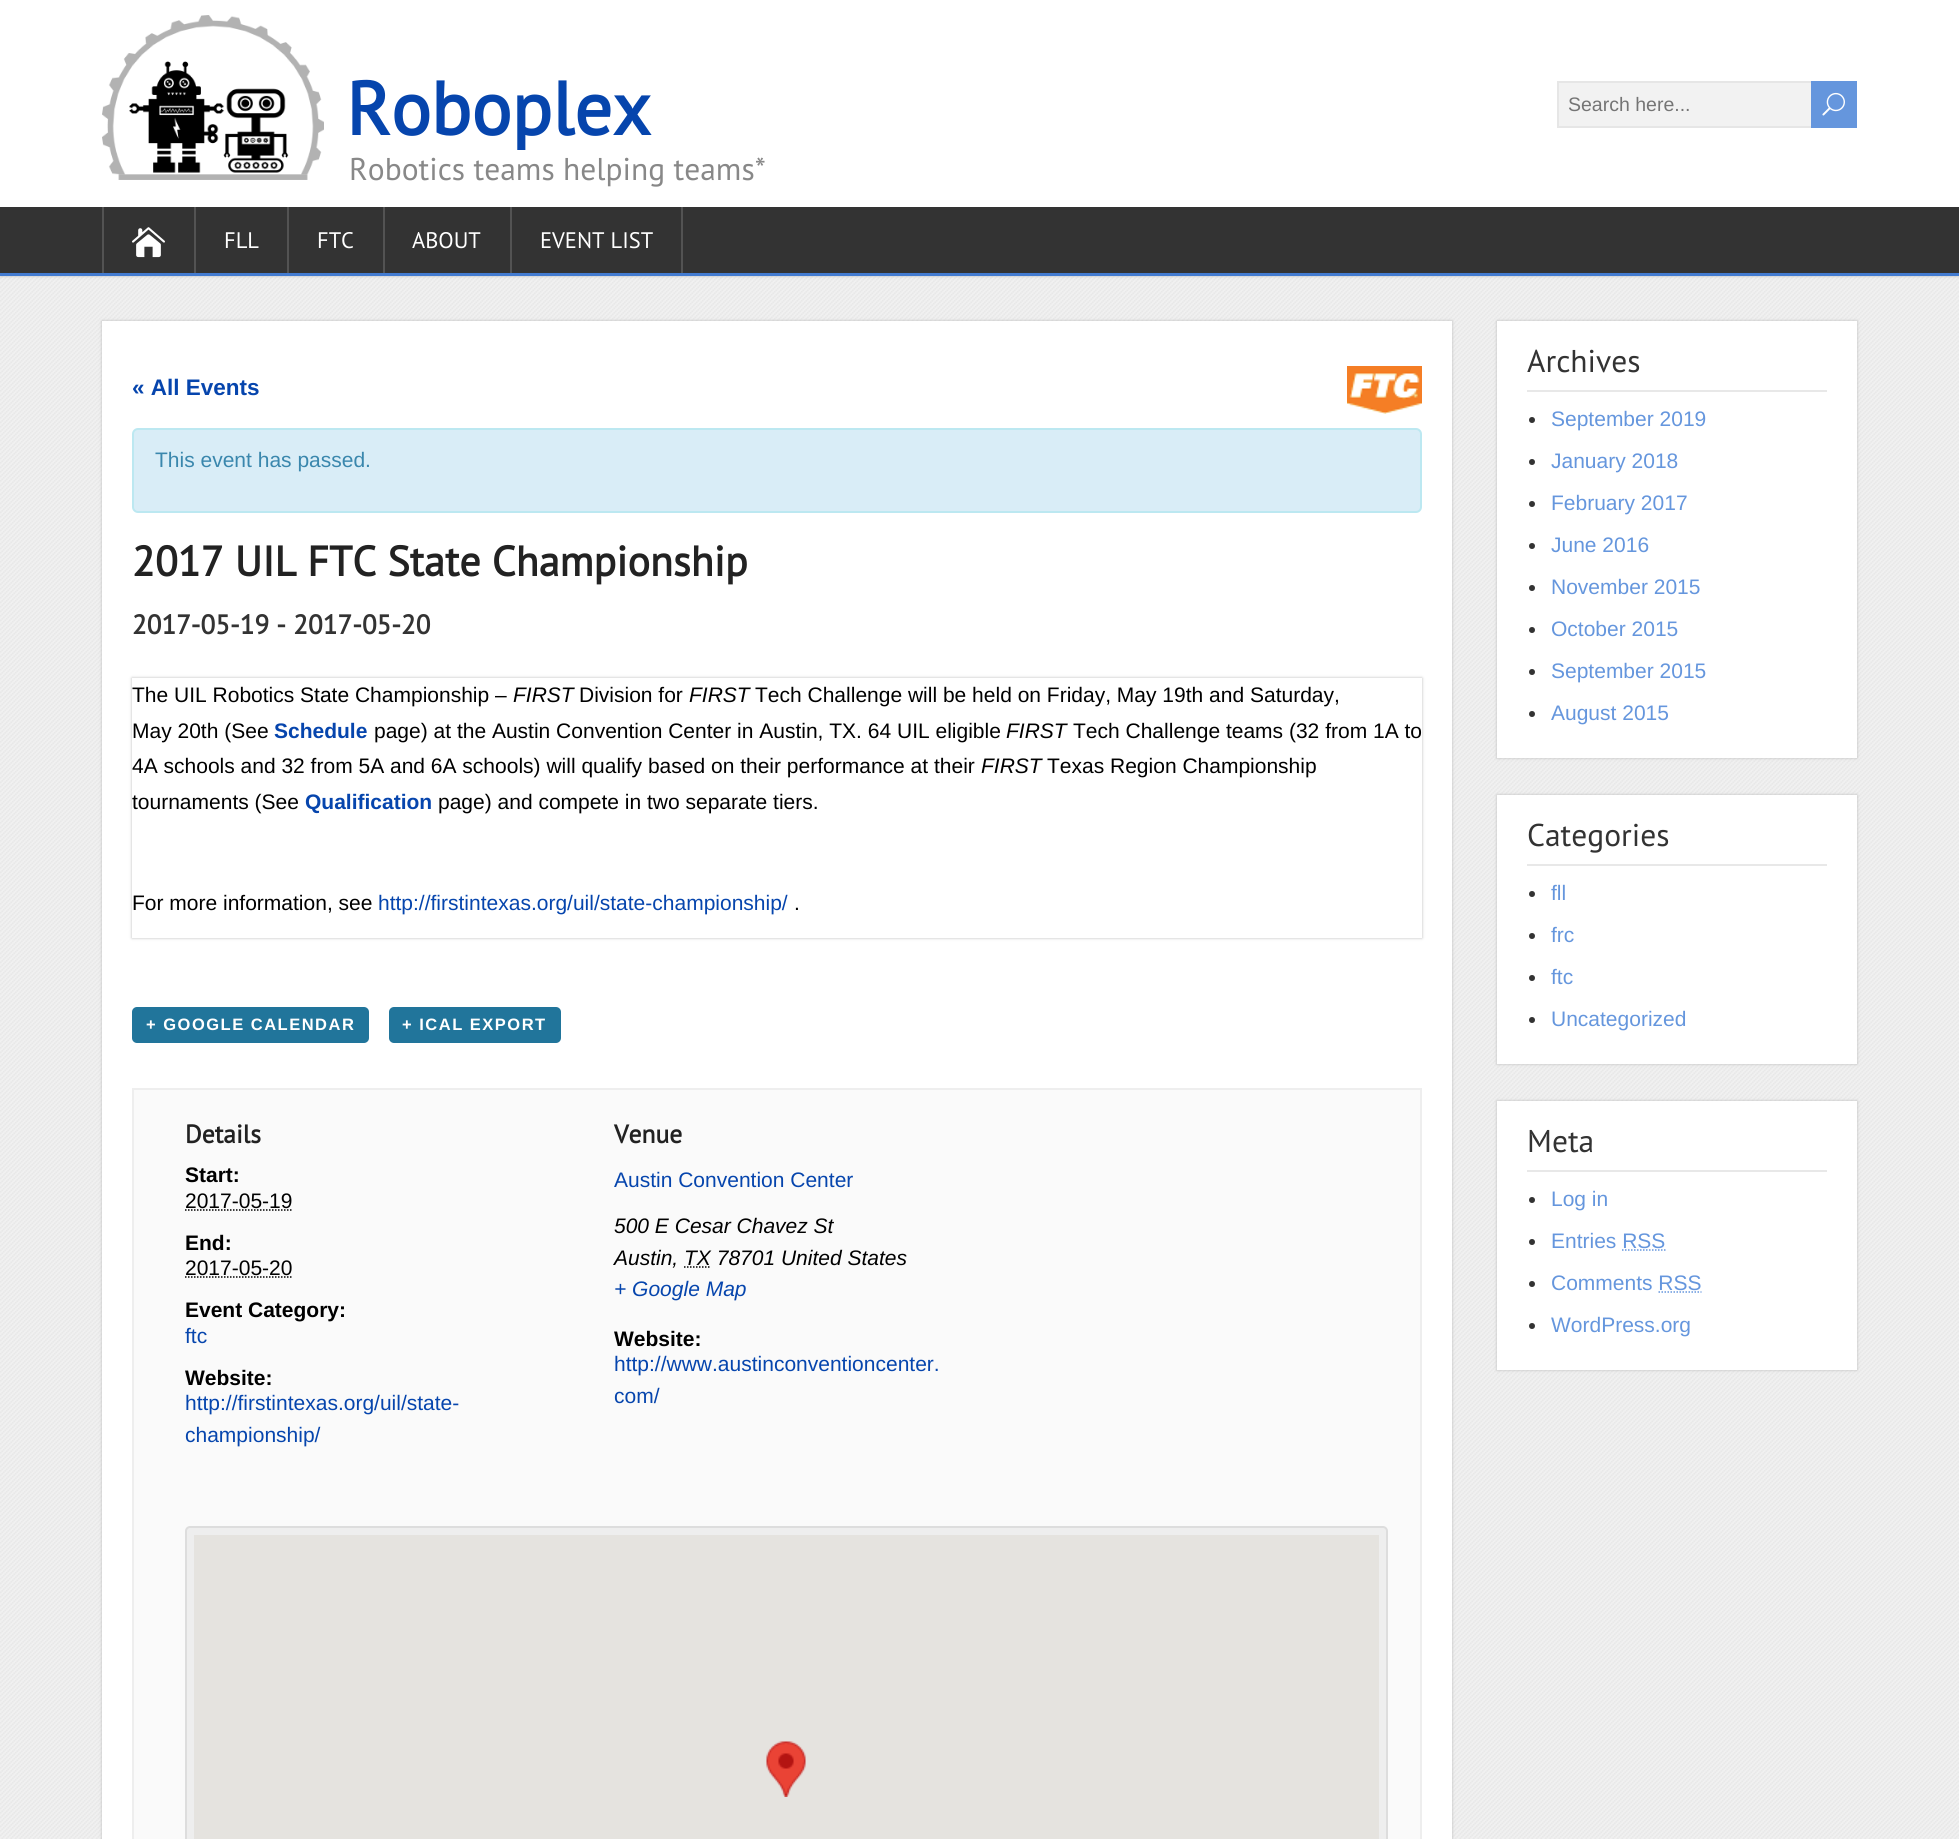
import math
import cairo


def use_color(cr, r, g, b):
  cr.set_source_rgb(r / 255, g / 255, b / 255)

def text(cr, x, y, s, family, size, color, bold=False, italic=False):
  cr.select_font_face(family, cairo.FONT_SLANT_ITALIC if italic else cairo.FONT_SLANT_NORMAL, cairo.FONT_WEIGHT_BOLD if bold else cairo.FONT_WEIGHT_NORMAL)
  cr.set_font_size(size)
  use_color(cr, *color)
  cr.move_to(x, y)
  cr.show_text(s)

def spaced_text(cr, x, y, s, letter, word):
  cr.move_to(x, y)
  for ch in s:
    cr.show_text(ch)
    cr.rel_move_to(letter + word * (ch == ' '), 0)

def box(cr, x, y, w, h, *color):
  use_color(cr, *color)
  cr.rectangle(x, y, w, h)
  cr.fill()

def round_rect(cr, x, y, w, h, r):
  cr.new_sub_path()
  for i, (u, v) in enumerate([(x + w - r, y + h - r), (x + r, y + h - r), (x + r, y + r), (x + w - r, y + r)]):
    cr.arc(u, v, r, i * math.pi / 2, (i + 1) * math.pi / 2)
  cr.close_path()

def shadow(cr, x, y, w, h, r, blur, alpha):
  cr.push_group_with_content(cairo.CONTENT_ALPHA)
  cr.set_operator(cairo.OPERATOR_SOURCE)
  for i in range(15, -16, -2):
    e = blur * i / 6
    if min(w, h) + 2 * e > 0:
      cr.set_source_rgba(0, 0, 0, alpha * math.erfc((i - 1) / 8.5) / 2)
      round_rect(cr, x - e, y - e, w + 2 * e, h + 2 * e, max(0, min(r + e + blur * .6, min(w, h) / 2 + e)))
      cr.fill()
  cr.mask(cr.pop_group())

def picture(cr, path, x, y, w, h):
  cr.save()
  cr.set_source_surface(cairo.ImageSurface.create_from_png(path), x, y)
  cr.rectangle(x, y, w, h)
  cr.fill()
  cr.restore()

def draw(cr):
  use_color(cr, 241, 241, 241)
  cr.paint()
  picture(cr, "img_06.png", 0, 276, 1959, 1563)
  use_color(cr, 187, 187, 187)
  shadow(cr, 0, 0, 1959, 276, 0, 1.5, 1)
  box(cr, 0, 0, 1959, 207, 255, 255, 255)
  picture(cr, "img_01.png", 102, 15, 222, 165)
  box(cr, 1559, 83, 252, 43, 242, 242, 242)
  cr.rectangle(1558, 82, 298, 45)
  use_color(cr, 230, 230, 230)
  cr.stroke()
  box(cr, 1811, 81, 46, 47, 101, 150, 221)
  picture(cr, "img_02.png", 1822, 92, 23, 24)
  box(cr, 0, 207, 1959, 66, 51, 51, 51)
  box(cr, 0, 273, 1959, 3, 67, 123, 208)
  box(cr, 194, 207, 2, 66, 83, 83, 83)
  box(cr, 102, 207, 2, 66, 83, 83, 83)
  picture(cr, "img_03.png", 132, 227, 33, 31)
  box(cr, 287, 207, 2, 66, 83, 83, 83)
  box(cr, 383, 207, 2, 66, 83, 83, 83)
  box(cr, 510, 207, 2, 66, 83, 83, 83)
  box(cr, 681, 207, 2, 66, 83, 83, 83)
  use_color(cr, 187, 187, 187)
  shadow(cr, 102, 321, 1350, 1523, 0, 1.5, 1)
  box(cr, 102, 321, 1350, 1518, 255, 255, 255)
  picture(cr, "img_04.png", 1347, 366, 75, 48)
  use_color(cr, 217, 237, 247)
  round_rect(cr, 133, 429, 1288, 83, 5)
  cr.fill_preserve()
  use_color(cr, 188, 232, 241)
  cr.stroke()
  use_color(cr, 187, 187, 187)
  shadow(cr, 132, 678, 1290, 260, 0, 1.5, 1)
  box(cr, 132, 678, 1290, 260, 255, 255, 255)
  use_color(cr, 33, 117, 155)
  round_rect(cr, 132, 1007, 237, 36, 5)
  cr.fill()
  round_rect(cr, 389, 1007, 172, 36, 5)
  cr.fill()
  use_color(cr, 250, 250, 250)
  cr.rectangle(133, 1089, 1288, 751)
  cr.fill_preserve()
  use_color(cr, 238, 238, 238)
  cr.stroke()
  cr.new_path()
  cr.move_to(185, 1210)
  cr.line_to(292.5, 1210)
  use_color(cr, 0, 0, 0)
  cr.set_line_width(1.5)
  cr.set_dash([1.5, 1.5])
  cr.stroke()
  cr.new_path()
  cr.move_to(185, 1277)
  cr.line_to(292.5, 1277)
  cr.stroke()
  cr.new_path()
  cr.move_to(684, 1267)
  cr.line_to(711, 1267)
  cr.stroke()
  use_color(cr, 238, 238, 238)
  round_rect(cr, 186, 1527, 1201, 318, 4)
  cr.fill_preserve()
  use_color(cr, 221, 221, 221)
  cr.set_line_width(2)
  cr.set_dash([])
  cr.stroke()
  box(cr, 194, 1535, 1185, 304, 229, 227, 223)
  picture(cr, "img_05.png", 766, 1741, 40, 56)
  use_color(cr, 187, 187, 187)
  shadow(cr, 1497, 321, 360, 437, 0, 1.5, 1)
  box(cr, 1497, 321, 360, 437, 255, 255, 255)
  box(cr, 1527, 390, 300, 2, 232, 232, 232)
  use_color(cr, 51, 51, 51)
  cr.arc(1532, 420, 3, 0, 2 * math.pi)
  cr.fill()
  cr.arc(1532, 462, 3, 0, 2 * math.pi)
  cr.fill()
  cr.arc(1532, 504, 3, 0, 2 * math.pi)
  cr.fill()
  cr.arc(1532, 546, 3, 0, 2 * math.pi)
  cr.fill()
  cr.arc(1532, 588, 3, 0, 2 * math.pi)
  cr.fill()
  cr.arc(1532, 630, 3, 0, 2 * math.pi)
  cr.fill()
  cr.arc(1532, 672, 3, 0, 2 * math.pi)
  cr.fill()
  cr.arc(1532, 714, 3, 0, 2 * math.pi)
  cr.fill()
  use_color(cr, 187, 187, 187)
  shadow(cr, 1497, 795, 360, 269, 0, 1.5, 1)
  box(cr, 1497, 795, 360, 269, 255, 255, 255)
  box(cr, 1527, 864, 300, 2, 232, 232, 232)
  use_color(cr, 51, 51, 51)
  cr.arc(1532, 894, 3, 0, 2 * math.pi)
  cr.fill()
  cr.arc(1532, 936, 3, 0, 2 * math.pi)
  cr.fill()
  cr.arc(1532, 978, 3, 0, 2 * math.pi)
  cr.fill()
  cr.arc(1532, 1020, 3, 0, 2 * math.pi)
  cr.fill()
  use_color(cr, 187, 187, 187)
  shadow(cr, 1497, 1101, 360, 269, 0, 1.5, 1)
  box(cr, 1497, 1101, 360, 269, 255, 255, 255)
  box(cr, 1527, 1170, 300, 2, 232, 232, 232)
  use_color(cr, 51, 51, 51)
  cr.arc(1532, 1200, 3, 0, 2 * math.pi)
  cr.fill()
  cr.arc(1532, 1242, 3, 0, 2 * math.pi)
  cr.fill()
  cr.new_path()
  cr.move_to(1622, 1250)
  cr.line_to(1665.5, 1250)
  use_color(cr, 101, 150, 221)
  cr.set_line_width(1.5)
  cr.set_dash([1.5, 1.5])
  cr.stroke()
  use_color(cr, 51, 51, 51)
  cr.arc(1532, 1284, 3, 0, 2 * math.pi)
  cr.fill()
  cr.new_path()
  cr.move_to(1658.5, 1292)
  cr.line_to(1701.5, 1292)
  use_color(cr, 101, 150, 221)
  cr.stroke()
  use_color(cr, 51, 51, 51)
  cr.arc(1532, 1326, 3, 0, 2 * math.pi)
  cr.fill()
  text(cr, 346, 135, "Roboplex", "PT Sans", 75, (6, 69, 173), bold=True)
  text(cr, 1568, 111, "Search here...", "Liberation Sans", 19.5, (117, 117, 117))
  text(cr, 349, 180, "Robotics teams helping teams*", "PT Sans", 31.5, (136, 136, 136))
  text(cr, 224, 248, "FLL", "PT Sans", 22.5, (255, 255, 255))
  text(cr, 317, 248, "FTC", "PT Sans", 22.5, (255, 255, 255))
  text(cr, 412, 248, "ABOUT", "PT Sans", 22.5, (255, 255, 255))
  text(cr, 540, 248, "EVENT LIST", "PT Sans", 22.5, (255, 255, 255))
  text(cr, 132, 395, "« All Events", "Liberation Sans", 22.5, (6, 69, 173), bold=True)
  text(cr, 155, 467, "This event has passed.", "Liberation Sans", 21, (58, 135, 173))
  text(cr, 132, 576, "2017 UIL FTC State Championship", "PT Sans", 42, (34, 34, 34), bold=True)
  text(cr, 132, 634, "2017-05-19 - 2017-05-20", "PT Sans", 27, (51, 51, 51), bold=True)
  text(cr, 132, 702, "The UIL Robotics State Championship –", "Liberation Sans", 21, (0, 0, 0))
  text(cr, 513, 702, "FIRST", "Liberation Sans", 21, (0, 0, 0), italic=True)
  text(cr, 579, 702, "Division for", "Liberation Sans", 21, (0, 0, 0))
  text(cr, 689, 702, "FIRST", "Liberation Sans", 21, (0, 0, 0), italic=True)
  text(cr, 755, 702, "Tech Challenge will be held on Friday, May 19th and Saturday,", "Liberation Sans", 21, (0, 0, 0))
  text(cr, 132, 738, "May 20th (See", "Liberation Sans", 21, (0, 0, 0))
  text(cr, 274, 738, "Schedule", "Liberation Sans", 21, (6, 69, 173), bold=True)
  text(cr, 374, 738, "page) at the Austin Convention Center in Austin, TX. 64 UIL eligible", "Liberation Sans", 21, (0, 0, 0))
  text(cr, 1006, 738, "FIRST", "Liberation Sans", 21, (0, 0, 0), italic=True)
  text(cr, 1073, 738, "Tech Challenge teams (32 from 1A to", "Liberation Sans", 21, (0, 0, 0))
  text(cr, 132, 773, "4A schools and 32 from 5A and 6A schools) will qualify based on their performance at their", "Liberation Sans", 21, (0, 0, 0))
  text(cr, 981, 773, "FIRST", "Liberation Sans", 21, (0, 0, 0), italic=True)
  text(cr, 1047, 773, "Texas Region Championship", "Liberation Sans", 21, (0, 0, 0))
  text(cr, 132, 809, "tournaments (See", "Liberation Sans", 21, (0, 0, 0))
  text(cr, 305, 809, "Qualification", "Liberation Sans", 21, (6, 69, 173), bold=True)
  text(cr, 438, 809, "page) and compete in two separate tiers.", "Liberation Sans", 21, (0, 0, 0))
  text(cr, 132, 910, "For more information, see", "Liberation Sans", 21, (0, 0, 0))
  text(cr, 378, 910, "http://firstintexas.org/uil/state-championship/", "Liberation Sans", 21, (6, 69, 173))
  text(cr, 794, 910, ".", "Liberation Sans", 21, (0, 0, 0))
  cr.select_font_face("Liberation Sans", cairo.FONT_SLANT_NORMAL, cairo.FONT_WEIGHT_BOLD)
  cr.set_font_size(16.5)
  use_color(cr, 255, 255, 255)
  spaced_text(cr, 146, 1030, "+ GOOGLE CALENDAR", 1.5, 0)
  spaced_text(cr, 402, 1030, "+ ICAL EXPORT", 1.5, 0)
  text(cr, 185, 1143, "Details", "PT Sans", 25.5, (34, 34, 34), bold=True)
  text(cr, 185, 1182, "Start:", "Liberation Sans", 21, (0, 0, 0), bold=True)
  text(cr, 185, 1208, "2017-05-19", "Liberation Sans", 21, (0, 0, 0))
  text(cr, 185, 1250, "End:", "Liberation Sans", 21, (0, 0, 0), bold=True)
  text(cr, 185, 1275, "2017-05-20", "Liberation Sans", 21, (0, 0, 0))
  text(cr, 185, 1317, "Event Category:", "Liberation Sans", 21, (0, 0, 0), bold=True)
  text(cr, 185, 1343, "ftc", "Liberation Sans", 21, (6, 69, 173))
  text(cr, 185, 1385, "Website:", "Liberation Sans", 21, (0, 0, 0), bold=True)
  text(cr, 185, 1410, "http://firstintexas.org/uil/state-", "Liberation Sans", 21, (6, 69, 173))
  text(cr, 185, 1442, "championship/", "Liberation Sans", 21, (6, 69, 173))
  text(cr, 614, 1143, "Venue", "PT Sans", 25.5, (34, 34, 34), bold=True)
  text(cr, 614, 1187, "Austin Convention Center", "Liberation Sans", 21, (6, 69, 173))
  text(cr, 614, 1233, "500 E Cesar Chavez St", "Liberation Sans", 21, (0, 0, 0), italic=True)
  text(cr, 614, 1265, "Austin, TX 78701 United States", "Liberation Sans", 21, (0, 0, 0), italic=True)
  text(cr, 614, 1296, "+ Google Map", "Liberation Sans", 21, (6, 69, 173), italic=True)
  text(cr, 614, 1346, "Website:", "Liberation Sans", 21, (0, 0, 0), bold=True)
  text(cr, 614, 1371, "http://www.austinconventioncenter.", "Liberation Sans", 21, (6, 69, 173))
  text(cr, 614, 1403, "com/", "Liberation Sans", 21, (6, 69, 173))
  text(cr, 1527, 372, "Archives", "PT Sans", 31.5, (51, 51, 51))
  text(cr, 1551, 426, "September 2019", "Liberation Sans", 21, (101, 150, 221))
  text(cr, 1551, 468, "January 2018", "Liberation Sans", 21, (101, 150, 221))
  text(cr, 1551, 510, "February 2017", "Liberation Sans", 21, (101, 150, 221))
  text(cr, 1551, 552, "June 2016", "Liberation Sans", 21, (101, 150, 221))
  text(cr, 1551, 594, "November 2015", "Liberation Sans", 21, (101, 150, 221))
  text(cr, 1551, 636, "October 2015", "Liberation Sans", 21, (101, 150, 221))
  text(cr, 1551, 678, "September 2015", "Liberation Sans", 21, (101, 150, 221))
  text(cr, 1551, 720, "August 2015", "Liberation Sans", 21, (101, 150, 221))
  text(cr, 1527, 846, "Categories", "PT Sans", 31.5, (51, 51, 51))
  text(cr, 1551, 900, "fll", "Liberation Sans", 21, (101, 150, 221))
  text(cr, 1551, 942, "frc", "Liberation Sans", 21, (101, 150, 221))
  text(cr, 1551, 984, "ftc", "Liberation Sans", 21, (101, 150, 221))
  text(cr, 1551, 1026, "Uncategorized", "Liberation Sans", 21, (101, 150, 221))
  text(cr, 1527, 1152, "Meta", "PT Sans", 31.5, (51, 51, 51))
  text(cr, 1551, 1206, "Log in", "Liberation Sans", 21, (101, 150, 221))
  text(cr, 1551, 1248, "Entries RSS", "Liberation Sans", 21, (101, 150, 221))
  text(cr, 1551, 1290, "Comments RSS", "Liberation Sans", 21, (101, 150, 221))
  text(cr, 1551, 1332, "WordPress.org", "Liberation Sans", 21, (101, 150, 221))


surface = cairo.ImageSurface(cairo.FORMAT_RGB24, 1959, 1839)
cr = cairo.Context(surface)
options = cairo.FontOptions()
options.set_hint_metrics(cairo.HINT_METRICS_OFF)
options.set_hint_style(cairo.HINT_STYLE_NONE)
cr.set_font_options(options)
cr.set_miter_limit(4)
draw(cr)
surface.write_to_png("out.png")
